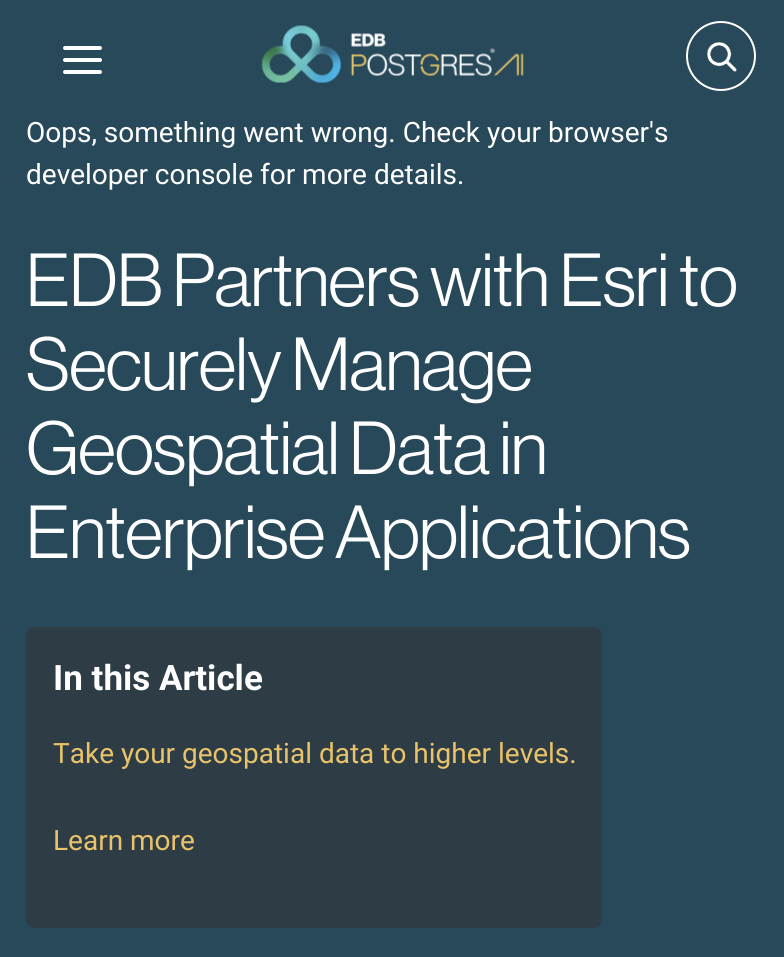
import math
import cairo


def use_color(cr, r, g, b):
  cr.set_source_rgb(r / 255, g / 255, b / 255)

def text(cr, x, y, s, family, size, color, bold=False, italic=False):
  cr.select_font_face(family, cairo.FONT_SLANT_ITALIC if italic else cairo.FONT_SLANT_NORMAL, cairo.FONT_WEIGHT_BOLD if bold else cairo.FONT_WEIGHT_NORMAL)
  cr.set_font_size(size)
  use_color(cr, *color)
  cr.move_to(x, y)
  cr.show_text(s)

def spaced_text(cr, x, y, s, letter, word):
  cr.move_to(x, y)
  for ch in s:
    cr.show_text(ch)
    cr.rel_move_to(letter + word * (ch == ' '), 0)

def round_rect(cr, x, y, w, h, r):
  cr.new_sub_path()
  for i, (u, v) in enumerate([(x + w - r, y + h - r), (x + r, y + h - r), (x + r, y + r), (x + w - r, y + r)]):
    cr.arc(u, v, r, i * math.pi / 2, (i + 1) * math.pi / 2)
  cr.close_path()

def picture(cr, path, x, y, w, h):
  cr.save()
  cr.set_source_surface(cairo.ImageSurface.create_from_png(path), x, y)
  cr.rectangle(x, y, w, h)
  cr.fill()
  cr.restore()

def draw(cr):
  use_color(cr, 40, 73, 90)
  cr.paint()
  use_color(cr, 255, 255, 255)
  round_rect(cr, 63, 46, 39, 4, 2)
  cr.fill()
  round_rect(cr, 63, 58, 39, 4, 2)
  cr.fill()
  round_rect(cr, 63, 70, 39, 4, 2)
  cr.fill()
  picture(cr, "img_01.png", 261, 25, 263, 58)
  cr.arc(721, 56, 34, 0, 2 * math.pi)
  cr.stroke()
  picture(cr, "img_02.png", 707, 42, 30, 30)
  use_color(cr, 46, 60, 70)
  round_rect(cr, 26, 627, 576, 301, 9)
  cr.fill()
  text(cr, 26, 142, "Oops, something went wrong. Check your browser's", "Roboto", 28, (255, 255, 255))
  text(cr, 26, 184, "developer console for more details.", "Roboto", 28, (255, 255, 255))
  cr.select_font_face("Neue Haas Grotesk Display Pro")
  cr.set_font_size(73.5)
  spaced_text(cr, 26, 306, "EDB Partners with Esri to", -0.75, 0)
  spaced_text(cr, 26, 390, "Securely Manage", -0.75, 0)
  spaced_text(cr, 26, 474, "Geospatial Data in", -0.75, 0)
  spaced_text(cr, 26, 558, "Enterprise Applications", -0.75, 0)
  text(cr, 53, 690, "In this Article", "Roboto", 35, (255, 255, 255), bold=True)
  text(cr, 53, 763, "Take your geospatial data to higher levels.", "Roboto", 28, (233, 195, 105))
  text(cr, 53, 850, "Learn more", "Roboto", 28, (233, 195, 105))


surface = cairo.ImageSurface(cairo.FORMAT_RGB24, 784, 957)
cr = cairo.Context(surface)
options = cairo.FontOptions()
options.set_hint_metrics(cairo.HINT_METRICS_OFF)
options.set_hint_style(cairo.HINT_STYLE_NONE)
cr.set_font_options(options)
cr.set_miter_limit(4)
draw(cr)
surface.write_to_png("out.png")
